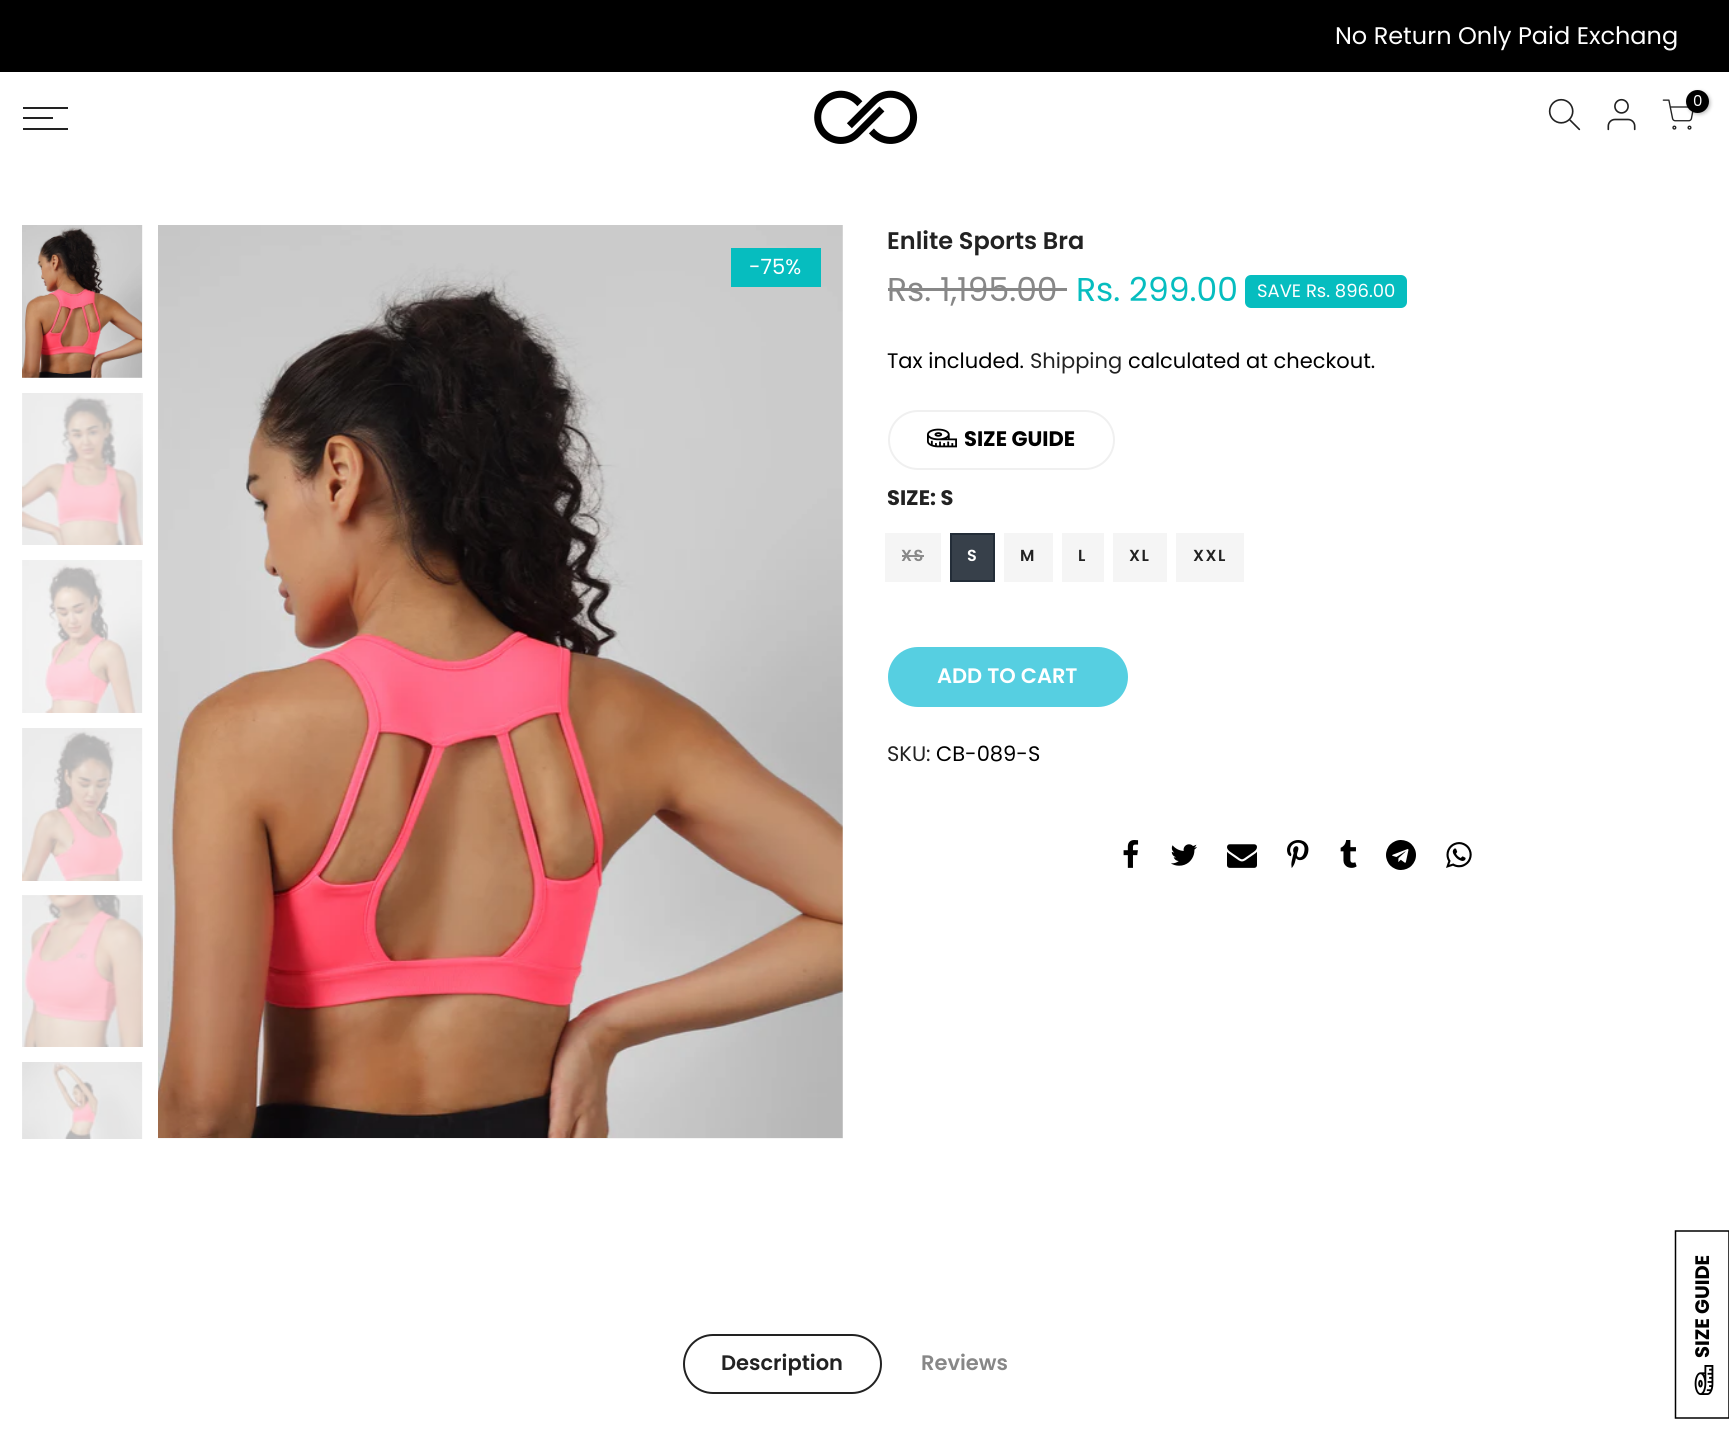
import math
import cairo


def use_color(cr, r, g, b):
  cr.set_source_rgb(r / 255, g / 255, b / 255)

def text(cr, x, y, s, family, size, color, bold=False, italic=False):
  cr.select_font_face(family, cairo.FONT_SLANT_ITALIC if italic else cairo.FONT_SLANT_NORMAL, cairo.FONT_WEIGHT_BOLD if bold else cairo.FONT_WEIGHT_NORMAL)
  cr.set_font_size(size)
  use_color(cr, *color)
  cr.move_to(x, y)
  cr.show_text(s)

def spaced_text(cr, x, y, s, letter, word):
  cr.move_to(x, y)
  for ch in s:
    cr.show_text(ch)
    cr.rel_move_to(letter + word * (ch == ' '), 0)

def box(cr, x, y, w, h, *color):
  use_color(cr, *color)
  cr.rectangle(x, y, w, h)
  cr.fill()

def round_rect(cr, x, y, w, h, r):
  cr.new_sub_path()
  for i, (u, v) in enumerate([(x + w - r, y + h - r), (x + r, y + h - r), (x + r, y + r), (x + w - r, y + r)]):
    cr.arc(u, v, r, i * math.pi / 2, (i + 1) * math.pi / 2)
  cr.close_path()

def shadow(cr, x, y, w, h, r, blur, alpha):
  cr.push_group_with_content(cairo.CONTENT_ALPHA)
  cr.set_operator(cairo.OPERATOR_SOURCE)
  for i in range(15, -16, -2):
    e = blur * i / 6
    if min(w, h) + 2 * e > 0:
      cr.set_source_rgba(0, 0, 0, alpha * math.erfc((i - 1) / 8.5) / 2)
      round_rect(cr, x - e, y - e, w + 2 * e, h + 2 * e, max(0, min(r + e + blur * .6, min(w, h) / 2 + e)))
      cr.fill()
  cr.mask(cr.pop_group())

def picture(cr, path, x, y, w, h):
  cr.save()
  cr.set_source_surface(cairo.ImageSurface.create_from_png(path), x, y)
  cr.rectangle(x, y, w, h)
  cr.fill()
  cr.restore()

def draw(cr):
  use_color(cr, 255, 255, 255)
  cr.paint()
  box(cr, 0, 0, 1729, 72, 0, 0, 0)
  picture(cr, "img_01.png", 814, 90, 104, 54)
  picture(cr, "img_02.png", 1548, 98, 33, 33)
  picture(cr, "img_03.png", 1607, 98, 29, 33)
  picture(cr, "img_04.png", 1662, 99, 32, 31)
  use_color(cr, 0, 0, 0)
  shadow(cr, 1688, 92, 22, 22, 11, 2, 0.3)
  use_color(cr, 0, 0, 0)
  cr.arc(1697.5, 101.5, 11.5, 0, 2 * math.pi)
  cr.fill()
  box(cr, 23, 107, 45, 2, 34, 34, 34)
  box(cr, 23, 117, 30, 2, 34, 34, 34)
  box(cr, 23, 128, 45, 2, 34, 34, 34)
  box(cr, 23, 225, 120, 153, 245, 245, 245)
  picture(cr, "img_05.png", 22, 225, 120, 153)
  box(cr, 23, 393, 120, 152, 252, 252, 252)
  picture(cr, "img_06.png", 22, 393, 121, 152)
  box(cr, 23, 560, 120, 153, 252, 252, 252)
  picture(cr, "img_07.png", 22, 560, 120, 153)
  box(cr, 23, 728, 120, 153, 252, 252, 252)
  picture(cr, "img_08.png", 22, 728, 120, 153)
  box(cr, 23, 896, 120, 151, 252, 252, 252)
  picture(cr, "img_09.png", 22, 895, 121, 152)
  box(cr, 23, 1062, 120, 77, 252, 252, 252)
  picture(cr, "img_10.png", 22, 1062, 120, 77)
  box(cr, 158, 225, 685, 914, 245, 245, 245)
  picture(cr, "img_11.png", 158, 225, 685, 913)
  box(cr, 731, 248, 90, 39, 6, 189, 191)
  box(cr, 888, 288, 179, 3, 135, 135, 135)
  use_color(cr, 6, 189, 191)
  round_rect(cr, 1245, 275, 162, 33, 6)
  cr.fill()
  round_rect(cr, 889, 411, 225, 58, 29)
  use_color(cr, 240, 240, 240)
  cr.stroke()
  picture(cr, "img_12.png", 927, 428, 30, 20)
  box(cr, 885, 533, 56, 49, 245, 245, 245)
  use_color(cr, 55, 64, 74)
  cr.rectangle(951, 534, 43, 47)
  cr.fill_preserve()
  use_color(cr, 35, 45, 56)
  cr.stroke()
  box(cr, 1004, 533, 49, 49, 245, 245, 245)
  box(cr, 1062, 533, 42, 49, 245, 245, 245)
  box(cr, 1113, 533, 54, 49, 245, 245, 245)
  box(cr, 1176, 533, 68, 49, 245, 245, 245)
  use_color(cr, 86, 207, 225)
  round_rect(cr, 888, 647, 240, 60, 30)
  cr.fill()
  picture(cr, "img_13.png", 1123, 840, 16, 28)
  picture(cr, "img_14.png", 1171, 844, 26, 22)
  picture(cr, "img_15.png", 1227, 844, 30, 24)
  picture(cr, "img_16.png", 1287, 840, 22, 28)
  picture(cr, "img_17.png", 1340, 840, 17, 28)
  picture(cr, "img_18.png", 1386, 840, 30, 30)
  picture(cr, "img_19.png", 1446, 842, 26, 26)
  round_rect(cr, 684, 1335, 197, 58, 29)
  use_color(cr, 34, 34, 34)
  cr.stroke()
  cr.new_path()
  cr.move_to(1675.5, 1418)
  cr.line_to(1675.5, 1231)
  cr.line_to(1729, 1231)
  cr.line_to(1729, 1418)
  cr.close_path()
  use_color(cr, 0, 0, 0)
  cr.set_line_width(1.5)
  cr.stroke()
  picture(cr, "img_20.png", 1694, 1365, 20, 30)
  text(cr, 1335, 44, "No Return Only Paid Exchang", "Poppins", 24, (255, 255, 255))
  text(cr, 1693, 106, "0", "Poppins", 15, (255, 255, 255))
  text(cr, 749, 274, "-75%", "Poppins", 21, (255, 255, 255))
  text(cr, 887, 249, "Enlite Sports Bra", "Poppins SemiBold", 24, (34, 34, 34))
  text(cr, 887, 301, "Rs. 1,195.00", "Poppins", 33, (135, 135, 135))
  text(cr, 1076, 301, "Rs. 299.00", "Poppins", 33, (6, 189, 191))
  text(cr, 1257, 297, "SAVE Rs. 896.00", "Poppins", 18, (255, 255, 255))
  text(cr, 887, 368, "Tax included.", "Poppins", 21, (0, 0, 0))
  text(cr, 1030, 368, "Shipping", "Poppins", 21, (34, 34, 34))
  text(cr, 1128, 368, "calculated at checkout.", "Poppins", 21, (0, 0, 0))
  text(cr, 964, 446, "SIZE GUIDE", "Poppins", 21, (0, 0, 0), bold=True)
  text(cr, 887, 505, "SIZE: S", "Poppins", 21, (34, 34, 34), bold=True)
  cr.select_font_face("Poppins SemiBold")
  cr.set_font_size(16)
  use_color(cr, 135, 135, 135)
  spaced_text(cr, 901, 561, "XS", 1.5, 0)
  box(cr, 902, 555, 22, 2, 140, 140, 140)
  use_color(cr, 255, 255, 255)
  spaced_text(cr, 967, 561, "S", 1.5, 0)
  use_color(cr, 34, 34, 34)
  spaced_text(cr, 1020, 561, "M", 1.5, 0)
  spaced_text(cr, 1078, 561, "L", 1.5, 0)
  spaced_text(cr, 1129, 561, "XL", 1.5, 0)
  spaced_text(cr, 1193, 561, "XXL", 1.5, 0)
  text(cr, 937, 683, "ADD TO CART", "Poppins SemiBold", 21, (255, 255, 255))
  cr.new_path()
  cr.move_to(999, 667.5)
  cr.curve_to(1001.5, 665, 1004.5, 664, 1008, 664)
  cr.curve_to(1023, 664, 1025.5, 686, 1010.5, 689)
  cr.curve_to(1006.5, 690, 1002, 688.5, 999, 685.5)
  use_color(cr, 86, 207, 225)
  cr.stroke()
  text(cr, 887, 761, "SKU:", "Poppins", 21, (34, 34, 34))
  text(cr, 936, 761, "CB-089-S", "Poppins", 21, (0, 0, 0))
  text(cr, 721, 1370, "Description", "Poppins SemiBold", 21, (34, 34, 34))
  text(cr, 921, 1370, "Reviews", "Poppins SemiBold", 21, (135, 135, 135))
  cr.save()
  cr.translate(1709, 1358)
  cr.rotate(-90 * math.pi / 180)
  text(cr, 0, 0, "SIZE GUIDE", "Poppins", 19.5, (0, 0, 0), bold=True)
  cr.restore()


surface = cairo.ImageSurface(cairo.FORMAT_RGB24, 1729, 1448)
cr = cairo.Context(surface)
options = cairo.FontOptions()
options.set_hint_metrics(cairo.HINT_METRICS_OFF)
options.set_hint_style(cairo.HINT_STYLE_NONE)
cr.set_font_options(options)
cr.set_miter_limit(4)
draw(cr)
surface.write_to_png("out.png")
